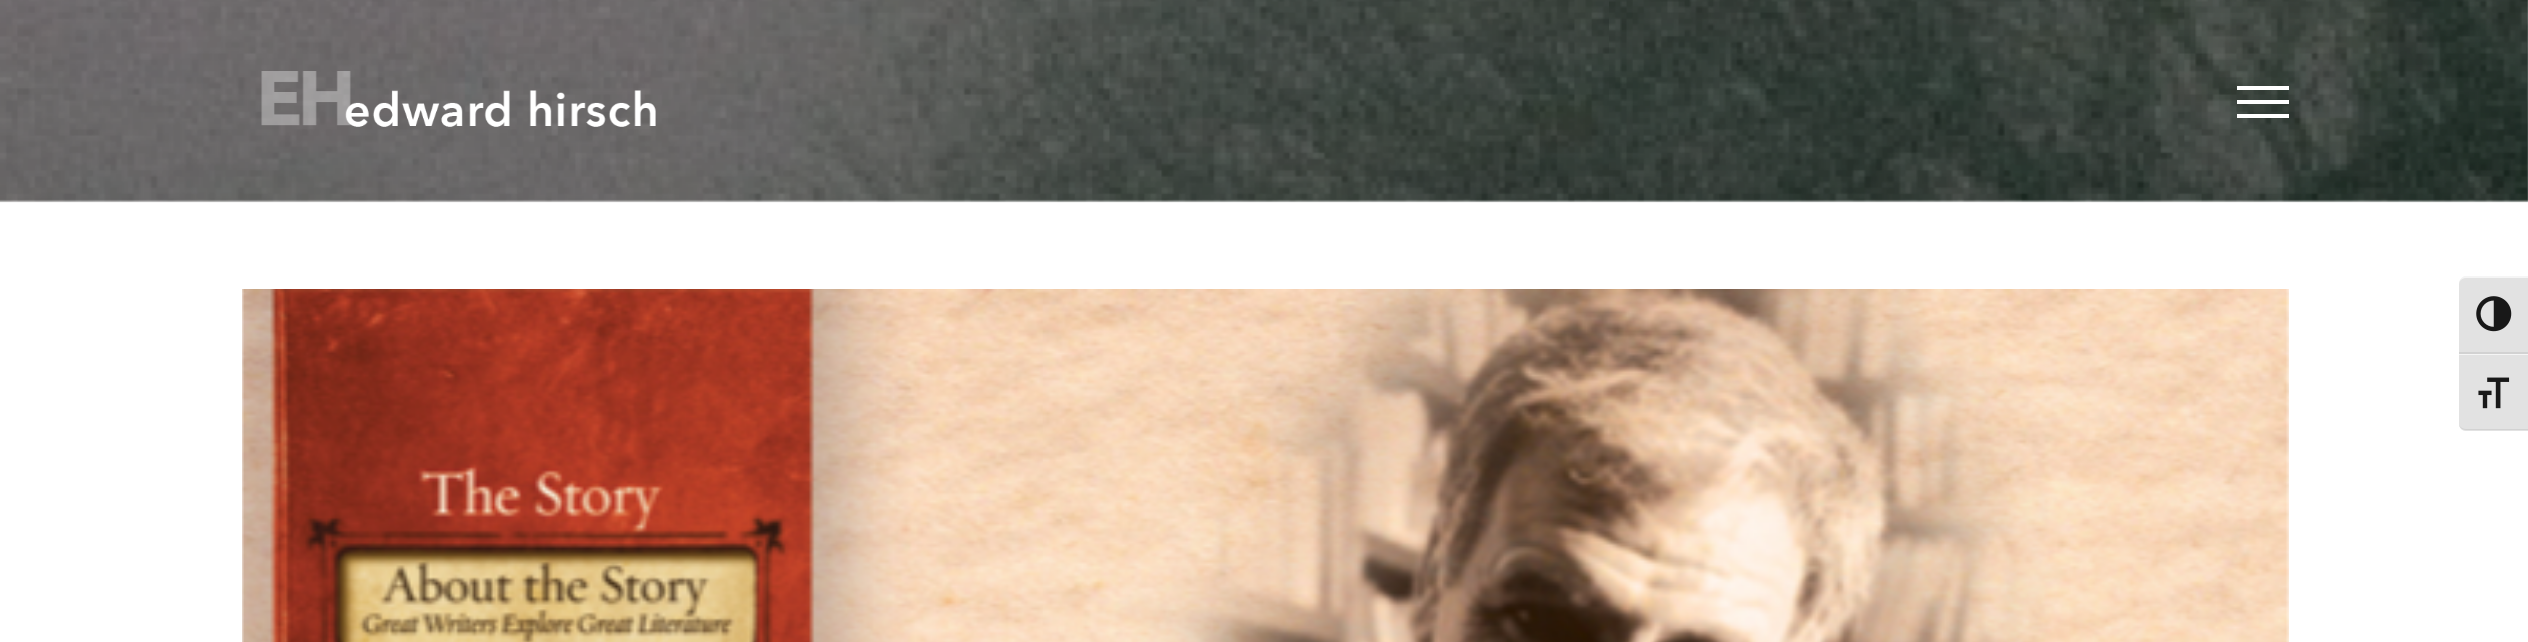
import math
import cairo


def use_color(cr, r, g, b):
  cr.set_source_rgb(r / 255, g / 255, b / 255)

def box(cr, x, y, w, h, *color):
  use_color(cr, *color)
  cr.rectangle(x, y, w, h)
  cr.fill()

def picture(cr, path, x, y, w, h):
  cr.save()
  cr.set_source_surface(cairo.ImageSurface.create_from_png(path), x, y)
  cr.rectangle(x, y, w, h)
  cr.fill()
  cr.restore()

def draw(cr):
  use_color(cr, 255, 255, 255)
  cr.paint()
  picture(cr, "img_01.png", 0, 0, 2528, 203)
  picture(cr, "img_02.png", 261, 71, 395, 56)
  box(cr, 2237, 86, 52, 4, 255, 255, 255)
  box(cr, 2237, 100, 52, 4, 255, 255, 255)
  box(cr, 2237, 114, 52, 4, 255, 255, 255)
  picture(cr, "img_03.png", 242, 289, 2047, 353)
  use_color(cr, 226, 226, 226)
  cr.new_path()
  cr.move_to(2466, 277)
  cr.line_to(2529, 277)
  cr.line_to(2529, 354)
  cr.line_to(2459, 354)
  cr.line_to(2459, 284)
  cr.curve_to(2459, 280, 2462, 277, 2466, 277)
  cr.close_path()
  cr.fill()
  use_color(cr, 245, 245, 245)
  cr.new_path()
  cr.move_to(2466, 278)
  cr.line_to(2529, 278)
  cr.line_to(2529, 276)
  cr.line_to(2464, 276)
  cr.curve_to(2461, 278, 2459, 281, 2459, 284)
  cr.curve_to(2459, 281, 2462, 278, 2466, 278)
  cr.close_path()
  cr.fill()
  box(cr, 2459, 352, 69, 2, 210, 210, 210)
  picture(cr, "img_04.png", 2476, 296, 36, 36)
  use_color(cr, 226, 226, 226)
  cr.new_path()
  cr.move_to(2459, 354)
  cr.line_to(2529, 354)
  cr.line_to(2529, 431)
  cr.line_to(2466, 431)
  cr.curve_to(2462, 431, 2459, 428, 2459, 424)
  cr.close_path()
  cr.fill()
  box(cr, 2459, 354, 69, 1, 245, 245, 245)
  use_color(cr, 210, 210, 210)
  cr.new_path()
  cr.move_to(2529, 429)
  cr.line_to(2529, 430)
  cr.line_to(2466, 430)
  cr.curve_to(2462, 430, 2459, 427, 2459, 424)
  cr.curve_to(2459, 426, 2462, 429, 2466, 429)
  cr.close_path()
  cr.fill()
  picture(cr, "img_05.png", 2478, 377, 32, 32)


surface = cairo.ImageSurface(cairo.FORMAT_RGB24, 2528, 642)
cr = cairo.Context(surface)
options = cairo.FontOptions()
options.set_hint_metrics(cairo.HINT_METRICS_OFF)
options.set_hint_style(cairo.HINT_STYLE_NONE)
cr.set_font_options(options)
cr.set_miter_limit(4)
draw(cr)
surface.write_to_png("out.png")
